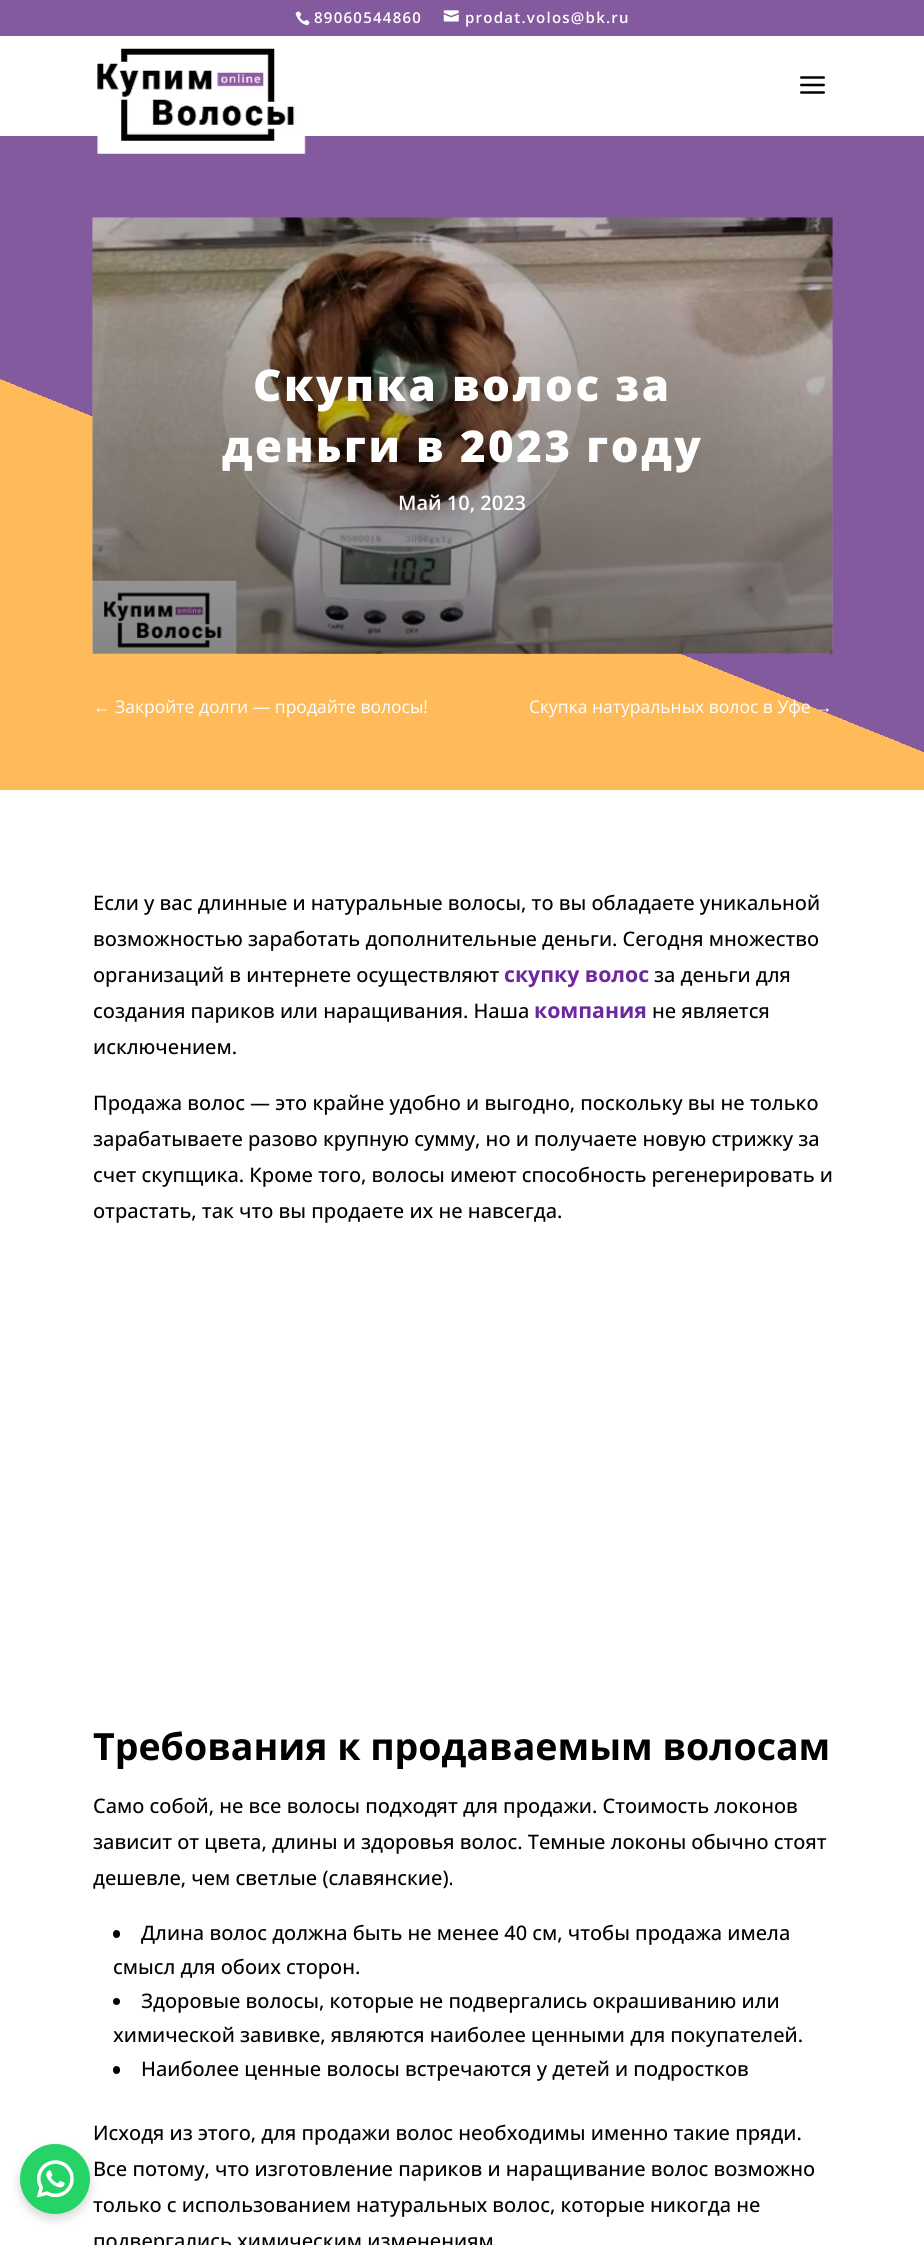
import math
import cairo


def use_color(cr, r, g, b):
  cr.set_source_rgb(r / 255, g / 255, b / 255)

def text(cr, x, y, s, family, size, color, bold=False, italic=False):
  cr.select_font_face(family, cairo.FONT_SLANT_ITALIC if italic else cairo.FONT_SLANT_NORMAL, cairo.FONT_WEIGHT_BOLD if bold else cairo.FONT_WEIGHT_NORMAL)
  cr.set_font_size(size)
  use_color(cr, *color)
  cr.move_to(x, y)
  cr.show_text(s)

def spaced_text(cr, x, y, s, letter, word):
  cr.move_to(x, y)
  for ch in s:
    cr.show_text(ch)
    cr.rel_move_to(letter + word * (ch == ' '), 0)

def box(cr, x, y, w, h, *color):
  use_color(cr, *color)
  cr.rectangle(x, y, w, h)
  cr.fill()

def round_rect(cr, x, y, w, h, r):
  cr.new_sub_path()
  for i, (u, v) in enumerate([(x + w - r, y + h - r), (x + r, y + h - r), (x + r, y + r), (x + w - r, y + r)]):
    cr.arc(u, v, r, i * math.pi / 2, (i + 1) * math.pi / 2)
  cr.close_path()

def shadow(cr, x, y, w, h, r, blur, alpha):
  cr.push_group_with_content(cairo.CONTENT_ALPHA)
  cr.set_operator(cairo.OPERATOR_SOURCE)
  for i in range(15, -16, -2):
    e = blur * i / 6
    if min(w, h) + 2 * e > 0:
      cr.set_source_rgba(0, 0, 0, alpha * math.erfc((i - 1) / 8.5) / 2)
      round_rect(cr, x - e, y - e, w + 2 * e, h + 2 * e, max(0, min(r + e + blur * .6, min(w, h) / 2 + e)))
      cr.fill()
  cr.mask(cr.pop_group())

def picture(cr, path, x, y, w, h):
  cr.save()
  cr.set_source_surface(cairo.ImageSurface.create_from_png(path), x, y)
  cr.rectangle(x, y, w, h)
  cr.fill()
  cr.restore()

def draw(cr):
  use_color(cr, 255, 255, 255)
  cr.paint()
  use_color(cr, 0, 0, 0)
  shadow(cr, 20, 2149, 70, 70, 35, 5, 0.16)
  use_color(cr, 37, 211, 102)
  cr.arc(55, 2179, 35, 0, 2 * math.pi)
  cr.fill()
  picture(cr, "img_01.png", 36, 2160, 38, 38)
  box(cr, 0, 0, 924, 36, 132, 90, 159)
  picture(cr, "img_02.png", 295, 11, 15, 15)
  picture(cr, "img_03.png", 443, 10, 16, 12)
  gradient = cairo.LinearGradient(284, 905, 641, 21)
  gradient.add_color_stop_rgba(0.4, 1, 0.733, 0.353, 1)
  gradient.add_color_stop_rgba(0.4, 0.518, 0.353, 0.624, 1)
  cr.set_source(gradient)
  cr.rectangle(0, 136, 924, 654)
  cr.fill()
  picture(cr, "img_04.png", 97, 48, 209, 106)
  picture(cr, "img_05.png", 800, 76, 25, 18)
  picture(cr, "img_06.png", 92, 217, 741, 437)
  use_color(cr, 0, 0, 0)
  round_rect(cr, 113, 1930, 7, 8, 3.5)
  cr.fill()
  cr.arc(116.5, 2001.5, 3.5, 0, 2 * math.pi)
  cr.fill()
  round_rect(cr, 113, 2066, 7, 8, 3.5)
  cr.fill()
  cr.select_font_face("Open Sans SemiBold")
  cr.set_font_size(15)
  use_color(cr, 255, 255, 255)
  spaced_text(cr, 314, 23, "89060544860", 1.25, 0)
  spaced_text(cr, 465, 23, "prodat.volos@bk.ru", 1.25, 0)
  cr.select_font_face("Open Sans ExtraBold")
  cr.set_font_size(43.75)
  spaced_text(cr, 253, 401, "Скупка волос за", 2.5, 0)
  spaced_text(cr, 222, 462, "деньги в 2023 году", 2.5, 0)
  text(cr, 398, 510, "Май 10, 2023", "Open Sans SemiBold", 20, (255, 255, 255))
  text(cr, 93, 713, "←", "Liberation Sans", 17.5, (255, 255, 255))
  text(cr, 115, 713, "Закройте долги — продайте волосы!", "Open Sans", 17.5, (255, 255, 255))
  text(cr, 529, 713, "Скупка натуральных волос в Уфе", "Open Sans", 17.5, (255, 255, 255))
  text(cr, 815, 713, "→", "Liberation Sans", 17.5, (255, 255, 255))
  text(cr, 93, 910, "Если у вас длинные и натуральные волосы, то вы обладаете уникальной", "Open Sans Medium", 20, (0, 0, 0))
  text(cr, 93, 946, "возможностью заработать дополнительные деньги. Сегодня множество", "Open Sans Medium", 20, (0, 0, 0))
  text(cr, 93, 982, "организаций в интернете осуществляют", "Open Sans Medium", 20, (0, 0, 0))
  text(cr, 504, 982, "скупку волос", "Open Sans", 21.25, (110, 39, 158), bold=True)
  text(cr, 654, 982, "за деньги для", "Open Sans Medium", 20, (0, 0, 0))
  text(cr, 93, 1018, "создания париков или наращивания. Наша", "Open Sans Medium", 20, (0, 0, 0))
  text(cr, 534, 1018, "компания", "Open Sans", 21.25, (110, 39, 158), bold=True)
  text(cr, 652, 1018, "не является", "Open Sans Medium", 20, (0, 0, 0))
  text(cr, 93, 1054, "исключением.", "Open Sans Medium", 20, (0, 0, 0))
  text(cr, 93, 1110, "Продажа волос — это крайне удобно и выгодно, поскольку вы не только", "Open Sans Medium", 20, (0, 0, 0))
  text(cr, 93, 1146, "зарабатываете разово крупную сумму, но и получаете новую стрижку за", "Open Sans Medium", 20, (0, 0, 0))
  text(cr, 93, 1182, "счет скупщика. Кроме того, волосы имеют способность регенерировать и", "Open Sans Medium", 20, (0, 0, 0))
  text(cr, 93, 1218, "отрастать, так что вы продаете их не навсегда.", "Open Sans Medium", 20, (0, 0, 0))
  text(cr, 93, 1760, "Требования к продаваемым волосам", "Open Sans", 37.5, (0, 0, 0), bold=True)
  text(cr, 93, 1813, "Само собой, не все волосы подходят для продажи. Стоимость локонов", "Open Sans Medium", 20, (0, 0, 0))
  text(cr, 93, 1849, "зависит от цвета, длины и здоровья волос. Темные локоны обычно стоят", "Open Sans Medium", 20, (0, 0, 0))
  text(cr, 93, 1885, "дешевле, чем светлые (славянские).", "Open Sans Medium", 20, (0, 0, 0))
  text(cr, 141, 1940, "Длина волос должна быть не менее 40 см, чтобы продажа имела", "Open Sans Medium", 20, (0, 0, 0))
  text(cr, 113, 1974, "смысл для обоих сторон.", "Open Sans Medium", 20, (0, 0, 0))
  text(cr, 141, 2008, "Здоровые волосы, которые не подвергались окрашиванию или", "Open Sans Medium", 20, (0, 0, 0))
  text(cr, 113, 2042, "химической завивке, являются наиболее ценными для покупателей.", "Open Sans Medium", 20, (0, 0, 0))
  text(cr, 141, 2076, "Наиболее ценные волосы встречаются у детей и подростков", "Open Sans Medium", 20, (0, 0, 0))
  text(cr, 93, 2140, "Исходя из этого, для продажи волос необходимы именно такие пряди.", "Open Sans Medium", 20, (0, 0, 0))
  text(cr, 93, 2176, "Все потому, что изготовление париков и наращивание волос возможно", "Open Sans Medium", 20, (0, 0, 0))
  text(cr, 93, 2212, "только с использованием натуральных волос, которые никогда не", "Open Sans Medium", 20, (0, 0, 0))
  text(cr, 93, 2248, "подвергались химическим изменениям", "Open Sans Medium", 20, (0, 0, 0))


surface = cairo.ImageSurface(cairo.FORMAT_RGB24, 924, 2245)
cr = cairo.Context(surface)
options = cairo.FontOptions()
options.set_hint_metrics(cairo.HINT_METRICS_OFF)
options.set_hint_style(cairo.HINT_STYLE_NONE)
cr.set_font_options(options)
cr.set_miter_limit(4)
draw(cr)
surface.write_to_png("out.png")
